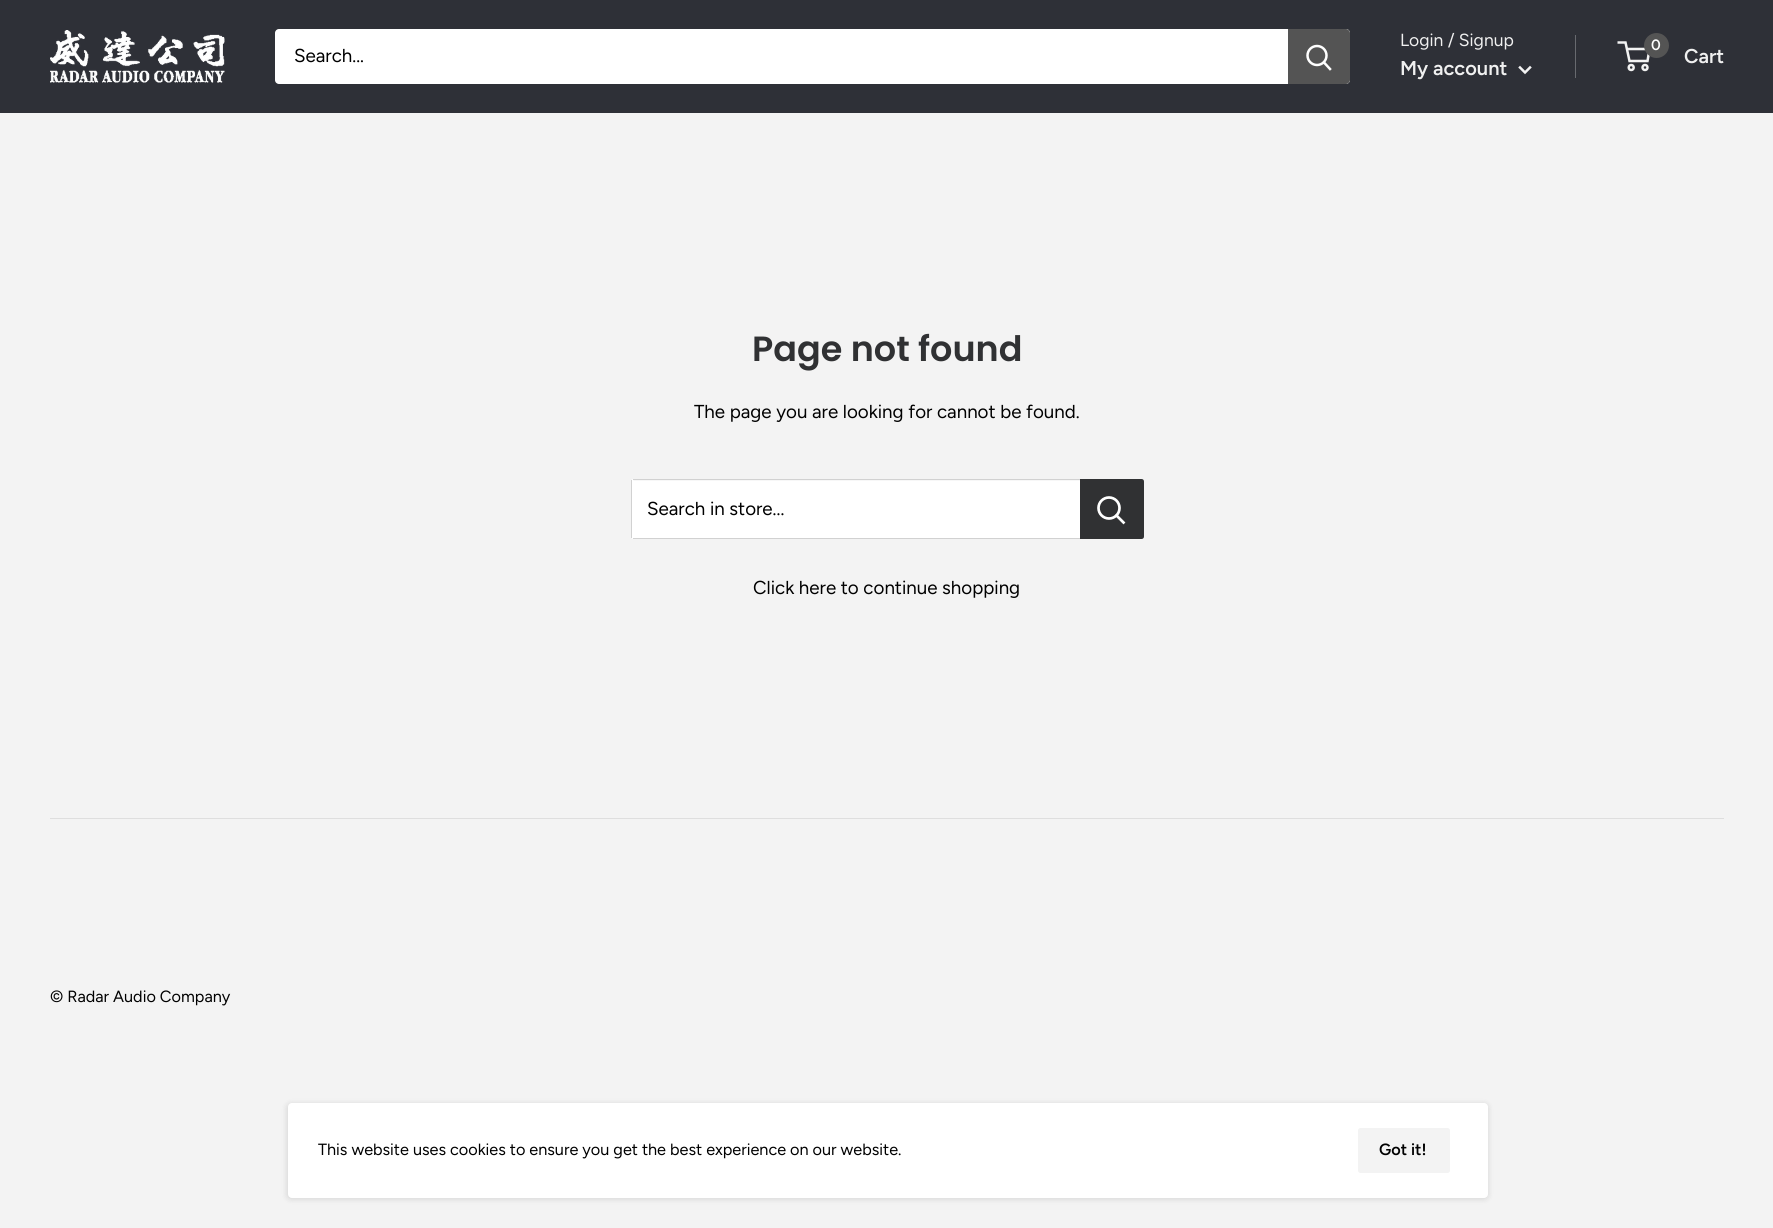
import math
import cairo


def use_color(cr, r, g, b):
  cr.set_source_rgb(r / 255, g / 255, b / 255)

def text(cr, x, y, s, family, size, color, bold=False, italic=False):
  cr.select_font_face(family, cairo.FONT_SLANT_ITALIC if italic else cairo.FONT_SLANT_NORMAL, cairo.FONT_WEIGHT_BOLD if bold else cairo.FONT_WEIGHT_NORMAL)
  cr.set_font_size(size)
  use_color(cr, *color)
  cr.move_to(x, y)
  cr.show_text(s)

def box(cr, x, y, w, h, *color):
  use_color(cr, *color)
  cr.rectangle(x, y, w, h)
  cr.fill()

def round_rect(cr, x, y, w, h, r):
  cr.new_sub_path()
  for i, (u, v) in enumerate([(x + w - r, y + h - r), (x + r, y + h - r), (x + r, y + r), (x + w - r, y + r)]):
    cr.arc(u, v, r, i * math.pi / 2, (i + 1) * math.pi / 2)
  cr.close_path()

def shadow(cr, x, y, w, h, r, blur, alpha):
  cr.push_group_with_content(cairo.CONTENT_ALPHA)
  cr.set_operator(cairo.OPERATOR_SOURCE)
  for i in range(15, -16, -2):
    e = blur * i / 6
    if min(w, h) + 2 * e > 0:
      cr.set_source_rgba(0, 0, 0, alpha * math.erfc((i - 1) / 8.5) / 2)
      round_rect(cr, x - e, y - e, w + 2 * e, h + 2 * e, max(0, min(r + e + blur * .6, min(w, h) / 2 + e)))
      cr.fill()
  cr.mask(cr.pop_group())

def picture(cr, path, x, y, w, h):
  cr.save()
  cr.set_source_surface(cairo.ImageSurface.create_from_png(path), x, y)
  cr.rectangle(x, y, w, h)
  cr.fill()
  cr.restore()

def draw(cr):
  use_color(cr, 243, 243, 243)
  cr.paint()
  box(cr, 0, 0, 1773, 113, 46, 48, 55)
  picture(cr, "img_01.png", 50, 30, 175, 53)
  use_color(cr, 255, 255, 255)
  round_rect(cr, 275, 29, 1075, 55, 4)
  cr.fill()
  use_color(cr, 84, 84, 84)
  cr.new_path()
  cr.move_to(1288, 29)
  cr.line_to(1346, 29)
  cr.curve_to(1348, 29, 1350, 31, 1350, 33)
  cr.line_to(1350, 80)
  cr.curve_to(1350, 82, 1348, 84, 1346, 84)
  cr.line_to(1288, 84)
  cr.close_path()
  cr.fill()
  cr.new_path()
  cr.move_to(1330, 69)
  cr.line_to(1324, 62.5)
  use_color(cr, 255, 255, 255)
  cr.set_line_width(2.5)
  cr.set_line_cap(cairo.LINE_CAP_SQUARE)
  cr.stroke()
  cr.arc(1317, 55.5, 9.5, 0, 2 * math.pi)
  cr.set_line_cap(cairo.LINE_CAP_BUTT)
  cr.stroke()
  box(cr, 1575, 35, 1, 43, 104, 106, 111)
  cr.new_path()
  cr.move_to(1530, 67.5)
  cr.line_to(1525, 72.5)
  cr.line_to(1520, 67.5)
  use_color(cr, 243, 243, 243)
  cr.set_line_cap(cairo.LINE_CAP_SQUARE)
  cr.stroke()
  cr.arc(1631.2, 67.5, 2.5, 0, 2 * math.pi)
  cr.set_line_cap(cairo.LINE_CAP_BUTT)
  cr.stroke()
  cr.arc(1645, 67.5, 2.5, 0, 2 * math.pi)
  cr.stroke()
  cr.new_path()
  cr.move_to(1626.5, 49)
  cr.line_to(1649.5, 49)
  cr.line_to(1647.5, 61)
  cr.line_to(1629.5, 61)
  cr.line_to(1625.5, 42.5)
  cr.line_to(1617.5, 42.5)
  cr.stroke()
  use_color(cr, 84, 84, 84)
  cr.arc(1656.5, 45.5, 12.5, 0, 2 * math.pi)
  cr.fill()
  use_color(cr, 255, 255, 255)
  cr.new_path()
  cr.move_to(633.5, 479)
  cr.line_to(1080, 479)
  cr.line_to(1080, 539)
  cr.line_to(633.5, 539)
  cr.curve_to(632, 539, 631, 538, 631, 536.5)
  cr.line_to(631, 481.5)
  cr.curve_to(631, 480, 632, 479, 633.5, 479)
  cr.close_path()
  cr.fill()
  use_color(cr, 247, 247, 247)
  cr.new_path()
  cr.move_to(634, 481)
  cr.line_to(1080, 481)
  cr.line_to(1080, 480)
  cr.line_to(634, 480)
  cr.line_to(633, 481)
  cr.close_path()
  cr.fill()
  box(cr, 633, 479, 447, 1, 209, 209, 209)
  box(cr, 633, 538, 447, 1, 209, 209, 209)
  box(cr, 631, 480, 1, 58, 209, 209, 209)
  use_color(cr, 48, 49, 51)
  cr.new_path()
  cr.move_to(1080, 479)
  cr.line_to(1141.5, 479)
  cr.curve_to(1143, 479, 1144, 480, 1144, 481.5)
  cr.line_to(1144, 536.5)
  cr.curve_to(1144, 538, 1143, 539, 1141.5, 539)
  cr.line_to(1080, 539)
  cr.close_path()
  cr.fill()
  cr.new_path()
  cr.move_to(1123.5, 522.5)
  cr.line_to(1116.5, 515.5)
  use_color(cr, 255, 255, 255)
  cr.set_line_width(2.7)
  cr.set_line_cap(cairo.LINE_CAP_SQUARE)
  cr.stroke()
  cr.arc(1109, 508, 10.5, 0, 2 * math.pi)
  cr.set_line_cap(cairo.LINE_CAP_BUTT)
  cr.stroke()
  box(cr, 50, 818, 1674, 1, 222, 222, 222)
  use_color(cr, 0, 0, 0)
  shadow(cr, 286, 1103, 1203, 97, 5, 2.5, 0.1)
  use_color(cr, 255, 255, 255)
  round_rect(cr, 288, 1103, 1200, 95, 4)
  cr.fill()
  use_color(cr, 243, 243, 243)
  round_rect(cr, 1358, 1128, 92, 45, 2.5)
  cr.fill()
  text(cr, 294, 62, "Search...", "Figtree", 18.75, (0, 0, 0))
  text(cr, 1400, 46, "Login / Signup", "Figtree", 17.5, (240, 240, 240))
  text(cr, 1400, 75, "My account", "Figtree SemiBold", 20, (240, 240, 240))
  text(cr, 1651, 50, "0", "Figtree SemiBold", 15, (255, 255, 255))
  text(cr, 1684, 63, "Cart", "Figtree SemiBold", 20, (240, 240, 240))
  text(cr, 752, 361, "Page not found", "Poppins SemiBold", 35, (48, 49, 51))
  text(cr, 694, 418, "The page you are looking for cannot be found.", "Figtree", 18.75, (0, 0, 0))
  text(cr, 647, 515, "Search in store...", "Figtree", 18.75, (0, 0, 0))
  text(cr, 753, 594, "Click here to continue shopping", "Figtree", 18.75, (0, 0, 0))
  text(cr, 50, 1002, "© Radar Audio Company", "Figtree", 16.25, (0, 0, 0))
  text(cr, 318, 1155, "This website uses cookies to ensure you get the best experience on our website.", "Figtree", 16.25, (0, 0, 0))
  text(cr, 1379, 1155, "Got it!", "Figtree SemiBold", 16.25, (0, 0, 0))


surface = cairo.ImageSurface(cairo.FORMAT_RGB24, 1773, 1228)
cr = cairo.Context(surface)
options = cairo.FontOptions()
options.set_hint_metrics(cairo.HINT_METRICS_OFF)
options.set_hint_style(cairo.HINT_STYLE_NONE)
cr.set_font_options(options)
cr.set_miter_limit(4)
draw(cr)
surface.write_to_png("out.png")
